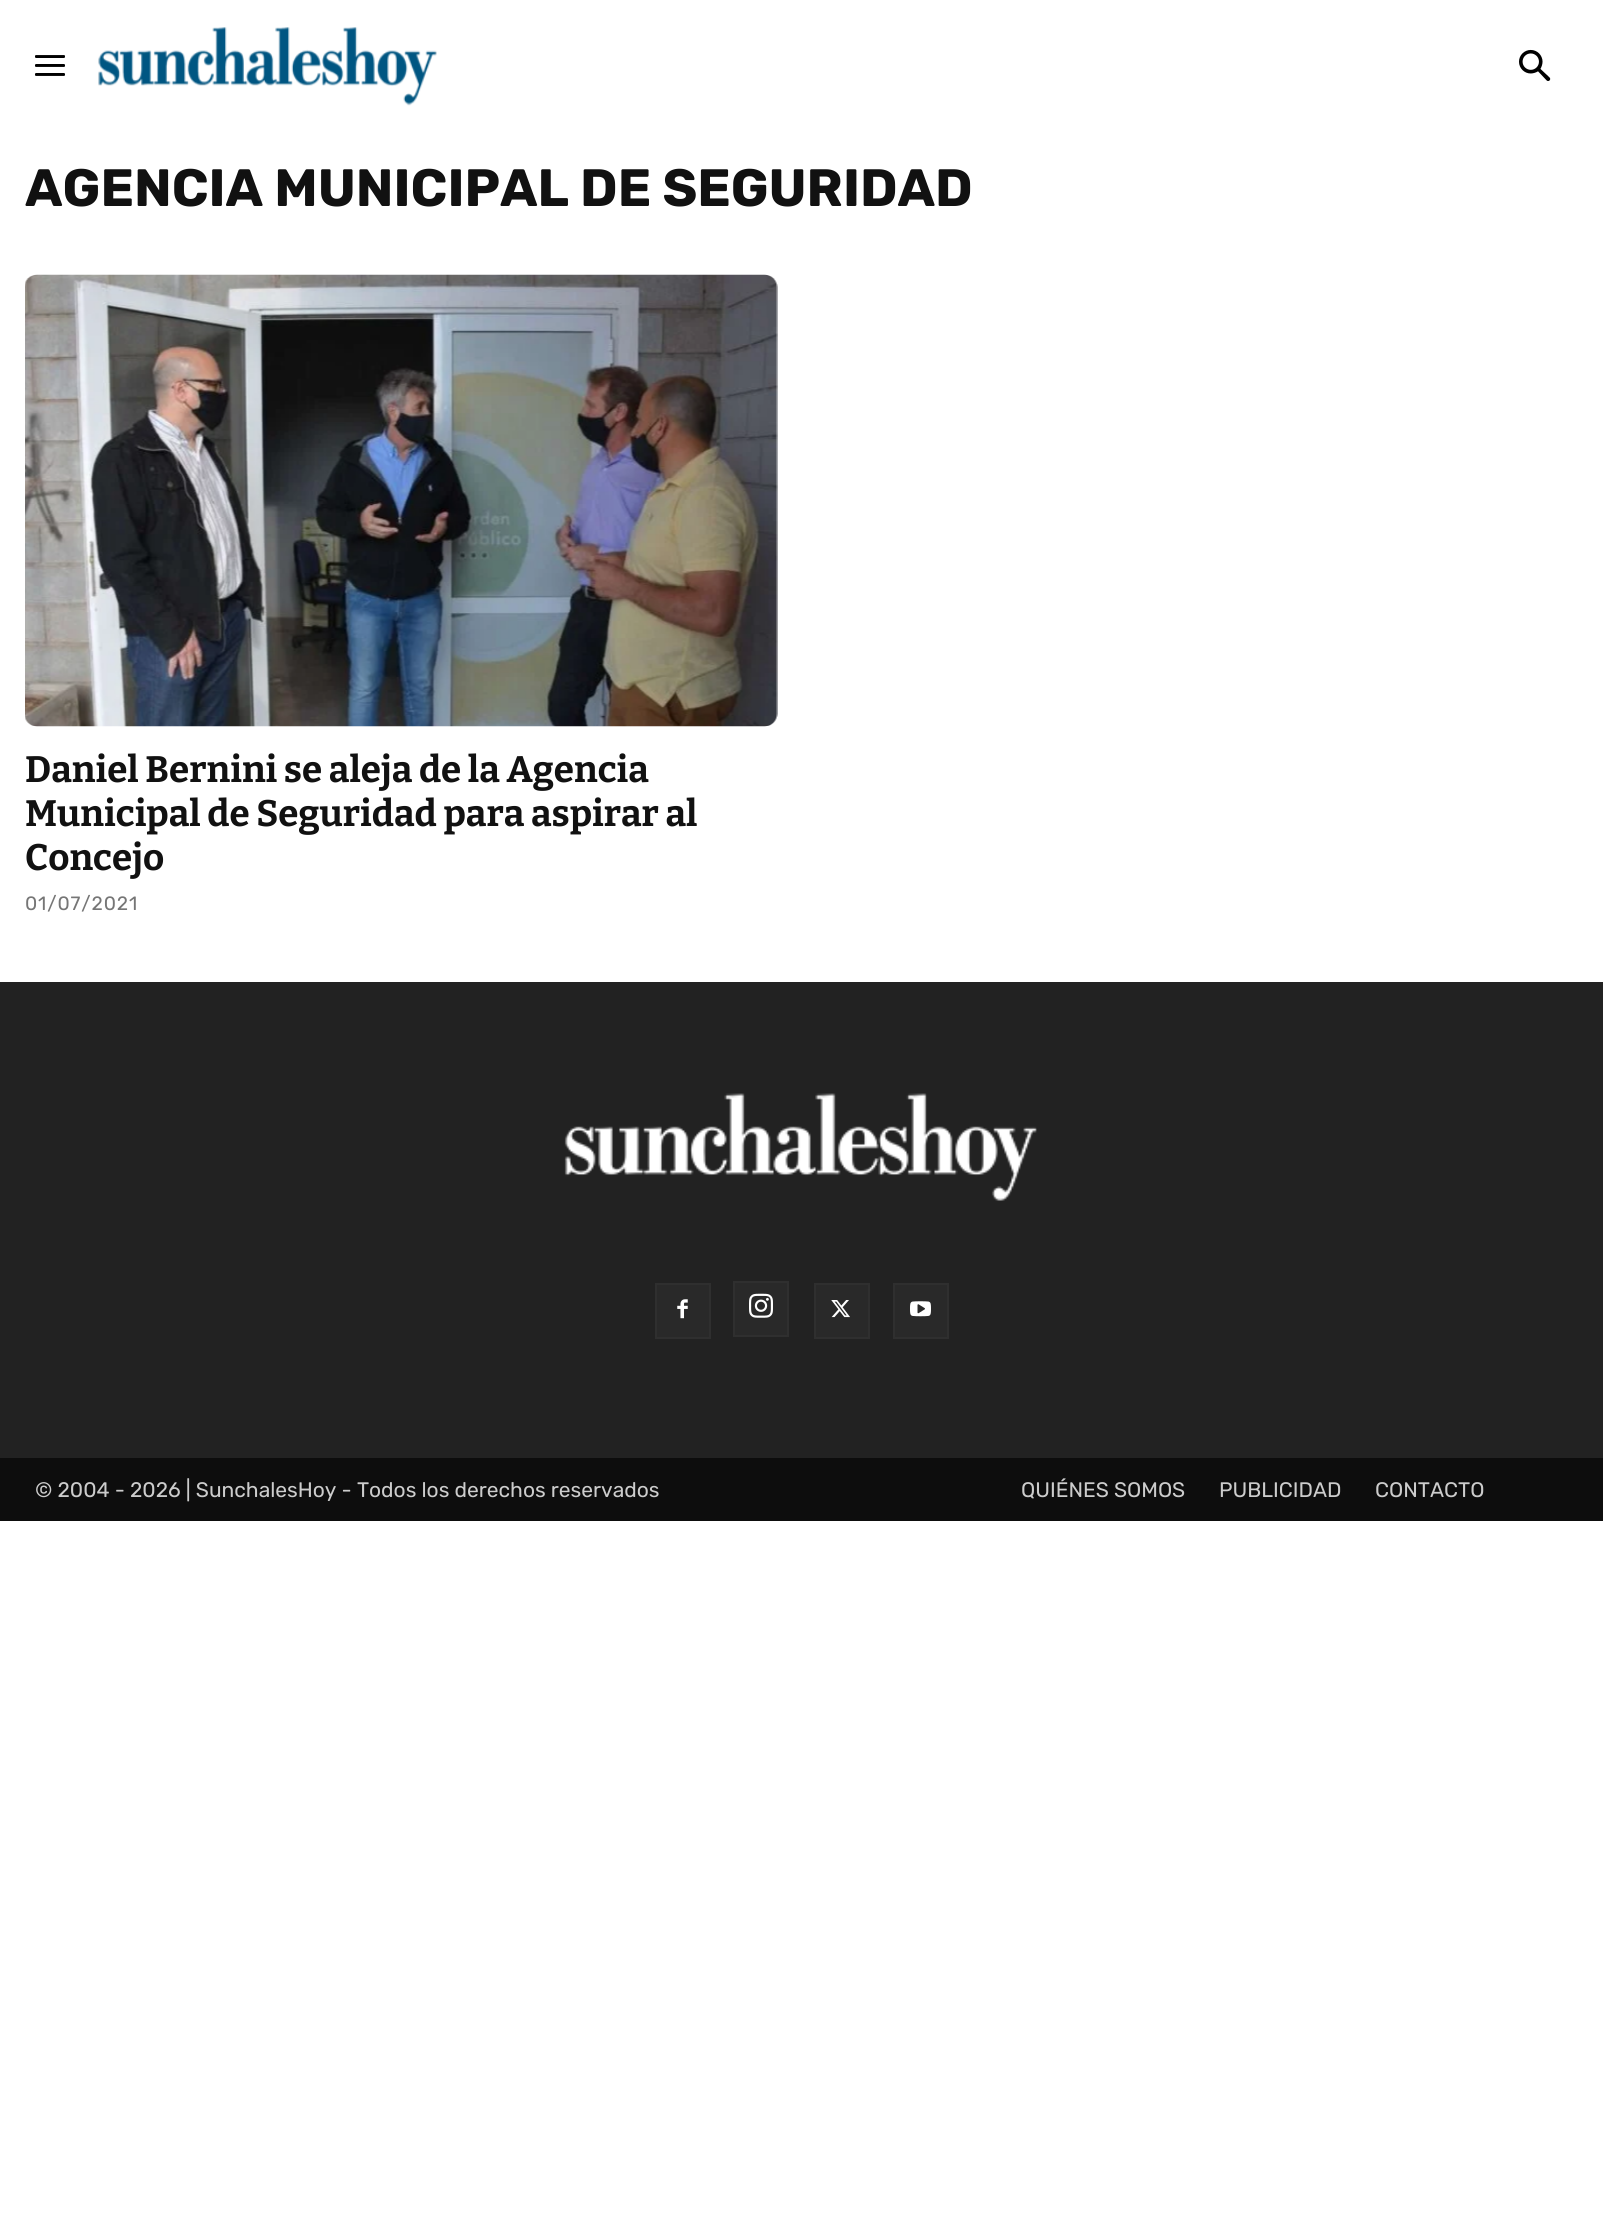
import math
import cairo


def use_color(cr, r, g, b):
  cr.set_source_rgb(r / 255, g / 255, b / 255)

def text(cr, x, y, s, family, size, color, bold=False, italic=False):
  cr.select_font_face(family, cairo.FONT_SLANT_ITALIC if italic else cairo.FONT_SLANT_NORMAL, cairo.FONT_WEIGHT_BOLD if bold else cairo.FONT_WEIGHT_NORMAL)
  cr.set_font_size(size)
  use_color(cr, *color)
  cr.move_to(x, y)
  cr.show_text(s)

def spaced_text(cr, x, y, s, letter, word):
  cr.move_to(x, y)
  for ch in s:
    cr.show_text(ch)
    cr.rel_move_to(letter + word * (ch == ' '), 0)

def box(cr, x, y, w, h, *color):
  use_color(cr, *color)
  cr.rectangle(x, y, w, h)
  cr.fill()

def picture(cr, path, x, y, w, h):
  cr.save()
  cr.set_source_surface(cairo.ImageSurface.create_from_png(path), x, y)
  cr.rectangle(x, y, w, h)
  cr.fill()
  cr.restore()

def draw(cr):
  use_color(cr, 255, 255, 255)
  cr.paint()
  picture(cr, "img_01.png", 35, 55, 30, 21)
  picture(cr, "img_02.png", 98, 27, 339, 79)
  picture(cr, "img_03.png", 1519, 49, 32, 32)
  picture(cr, "img_04.png", 25, 274, 753, 453)
  box(cr, 0, 982, 1603, 476, 34, 34, 34)
  picture(cr, "img_05.png", 564, 1093, 473, 108)
  box(cr, 657, 1285, 52, 52, 41, 41, 41)
  picture(cr, "img_06.png", 677, 1299, 11, 20)
  cr.rectangle(656, 1284, 54, 54)
  use_color(cr, 47, 47, 47)
  cr.stroke()
  box(cr, 735, 1283, 52, 52, 41, 41, 41)
  picture(cr, "img_07.png", 749, 1293, 24, 25)
  cr.rectangle(734, 1282, 54, 54)
  use_color(cr, 47, 47, 47)
  cr.stroke()
  box(cr, 816, 1285, 52, 52, 41, 41, 41)
  picture(cr, "img_08.png", 831, 1300, 19, 18)
  cr.rectangle(815, 1284, 54, 54)
  use_color(cr, 47, 47, 47)
  cr.stroke()
  box(cr, 895, 1285, 52, 52, 41, 41, 41)
  picture(cr, "img_09.png", 910, 1301, 21, 16)
  cr.rectangle(894, 1284, 54, 54)
  use_color(cr, 47, 47, 47)
  cr.stroke()
  box(cr, 0, 1458, 1603, 63, 13, 13, 13)
  text(cr, 25, 206, "AGENCIA MUNICIPAL DE SEGURIDAD", "Rubik", 52.5, (17, 17, 17), bold=True)
  text(cr, 25, 782, "Daniel Bernini se aleja de la Agencia", "Bitter", 36.75, (17, 17, 17), bold=True)
  text(cr, 25, 826, "Municipal de Seguridad para aspirar al", "Bitter", 36.75, (17, 17, 17), bold=True)
  text(cr, 25, 870, "Concejo", "Bitter", 36.75, (17, 17, 17), bold=True)
  cr.select_font_face("Rubik")
  cr.set_font_size(19.25)
  use_color(cr, 118, 118, 118)
  spaced_text(cr, 25, 910, "01/07/2021", 0.9, 0)
  text(cr, 35, 1497, "© 2004 - 2026 | SunchalesHoy - Todos los derechos reservados", "Rubik", 21, (204, 204, 204))
  text(cr, 1021, 1497, "QUIÉNES SOMOS", "Rubik", 21, (204, 204, 204))
  text(cr, 1219, 1497, "PUBLICIDAD", "Rubik", 21, (204, 204, 204))
  text(cr, 1375, 1497, "CONTACTO", "Rubik", 21, (204, 204, 204))


surface = cairo.ImageSurface(cairo.FORMAT_RGB24, 1603, 2218)
cr = cairo.Context(surface)
options = cairo.FontOptions()
options.set_hint_metrics(cairo.HINT_METRICS_OFF)
options.set_hint_style(cairo.HINT_STYLE_NONE)
cr.set_font_options(options)
cr.set_miter_limit(4)
draw(cr)
surface.write_to_png("out.png")
